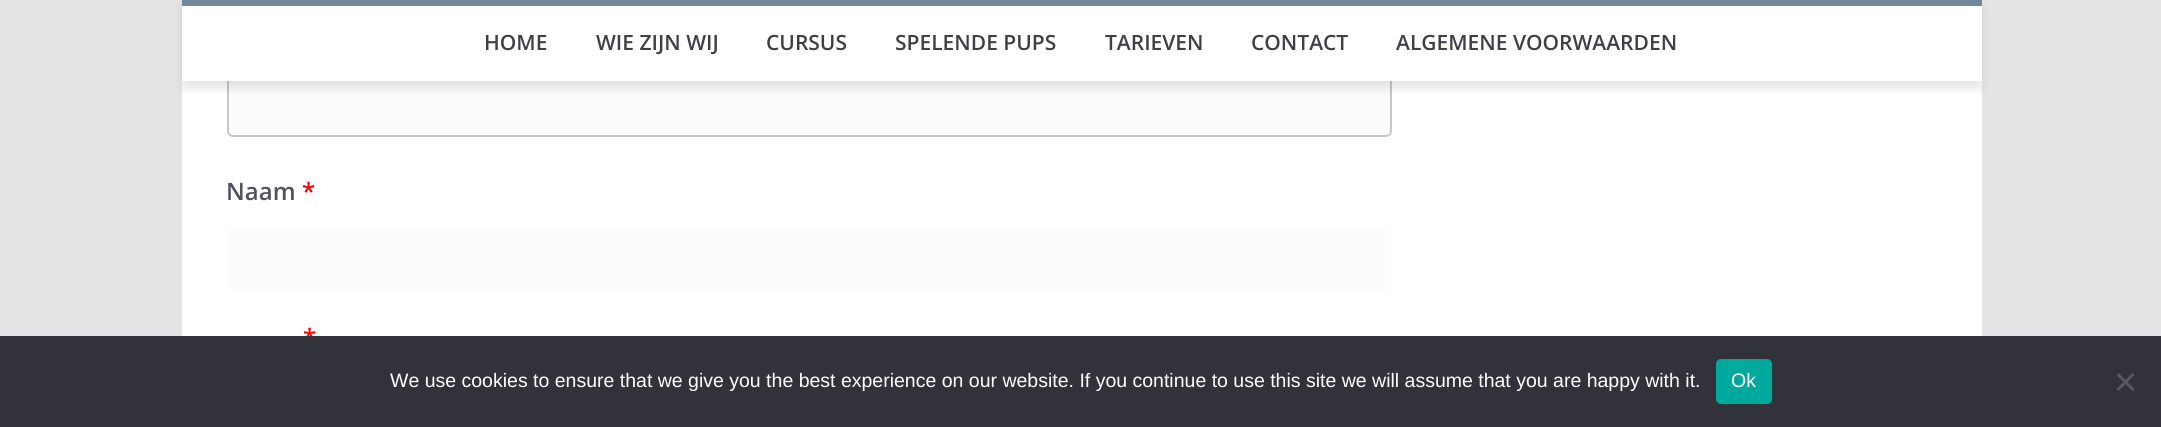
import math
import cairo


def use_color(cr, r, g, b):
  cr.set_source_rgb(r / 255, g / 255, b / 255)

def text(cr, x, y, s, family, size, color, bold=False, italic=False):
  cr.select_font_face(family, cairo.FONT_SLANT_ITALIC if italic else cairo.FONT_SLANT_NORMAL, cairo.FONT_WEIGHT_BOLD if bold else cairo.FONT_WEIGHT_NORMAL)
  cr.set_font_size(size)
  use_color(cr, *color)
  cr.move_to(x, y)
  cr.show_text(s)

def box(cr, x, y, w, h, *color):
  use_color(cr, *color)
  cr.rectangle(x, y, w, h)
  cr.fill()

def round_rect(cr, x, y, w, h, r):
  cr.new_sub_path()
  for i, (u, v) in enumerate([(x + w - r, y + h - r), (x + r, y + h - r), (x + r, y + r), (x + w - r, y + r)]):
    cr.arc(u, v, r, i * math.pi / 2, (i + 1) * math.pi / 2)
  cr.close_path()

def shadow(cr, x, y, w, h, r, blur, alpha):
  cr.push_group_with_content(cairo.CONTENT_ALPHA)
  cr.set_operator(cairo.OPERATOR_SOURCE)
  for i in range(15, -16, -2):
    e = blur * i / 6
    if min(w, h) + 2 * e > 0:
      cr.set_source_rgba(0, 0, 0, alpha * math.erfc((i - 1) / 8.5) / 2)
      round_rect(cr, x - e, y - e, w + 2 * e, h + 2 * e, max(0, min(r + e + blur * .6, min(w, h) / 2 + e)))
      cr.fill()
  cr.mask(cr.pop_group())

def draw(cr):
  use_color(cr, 228, 228, 231)
  cr.paint()
  box(cr, 182, 81, 1800, 255, 255, 255, 255)
  use_color(cr, 252, 252, 252)
  round_rect(cr, 228, -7, 1163, 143, 5)
  cr.fill_preserve()
  use_color(cr, 199, 199, 199)
  cr.stroke()
  use_color(cr, 0, 0, 0)
  shadow(cr, 182, 8, 1800, 81, 0, 4.5, 0.1)
  box(cr, 182, 6, 1800, 75, 255, 255, 255)
  box(cr, 182, 0, 1800, 6, 116, 136, 155)
  use_color(cr, 252, 252, 252)
  round_rect(cr, 228, 226, 1163, 67, 5)
  cr.fill_preserve()
  use_color(cr, 255, 255, 255)
  cr.stroke()
  text(cr, 484, 50, "HOME", "Open Sans SemiBold", 21, (63, 63, 70))
  text(cr, 596, 50, "WIE ZIJN WIJ", "Open Sans SemiBold", 21, (63, 63, 70))
  text(cr, 766, 50, "CURSUS", "Open Sans SemiBold", 21, (63, 63, 70))
  text(cr, 895, 50, "SPELENDE PUPS", "Open Sans SemiBold", 21, (63, 63, 70))
  text(cr, 1105, 50, "TARIEVEN", "Open Sans SemiBold", 21, (63, 63, 70))
  text(cr, 1251, 50, "CONTACT", "Open Sans SemiBold", 21, (63, 63, 70))
  text(cr, 1396, 50, "ALGEMENE VOORWAARDEN", "Open Sans SemiBold", 21, (63, 63, 70))
  text(cr, 226, 200, "Naam", "Open Sans SemiBold", 24, (82, 82, 91))
  text(cr, 302, 200, "*", "Open Sans SemiBold", 24, (255, 0, 0))
  text(cr, 303, 346, "*", "Open Sans SemiBold", 24, (255, 0, 0))
  box(cr, 0, 336, 2161, 91, 50, 50, 58)
  text(cr, 390, 387, "We use cookies to ensure that we give you the best experience on our website. If you continue to use this site we will assume that you are happy with it.", "Liberation Sans", 19.5, (255, 255, 255))
  use_color(cr, 0, 169, 157)
  round_rect(cr, 1716, 359, 56, 45, 5)
  cr.fill()
  text(cr, 1731, 387, "Ok", "Liberation Sans", 19.5, (255, 255, 255))
  use_color(cr, 89, 89, 93)
  cr.new_path()
  cr.move_to(2132.5, 373)
  cr.line_to(2134.5, 375)
  cr.line_to(2118.5, 391)
  cr.line_to(2116.5, 389)
  cr.close_path()
  cr.fill()
  cr.new_path()
  cr.move_to(2116.5, 375)
  cr.line_to(2118.5, 373)
  cr.line_to(2134.5, 389)
  cr.line_to(2132.5, 391)
  cr.close_path()
  cr.fill()


surface = cairo.ImageSurface(cairo.FORMAT_RGB24, 2161, 427)
cr = cairo.Context(surface)
options = cairo.FontOptions()
options.set_hint_metrics(cairo.HINT_METRICS_OFF)
options.set_hint_style(cairo.HINT_STYLE_NONE)
cr.set_font_options(options)
cr.set_miter_limit(4)
draw(cr)
surface.write_to_png("out.png")
